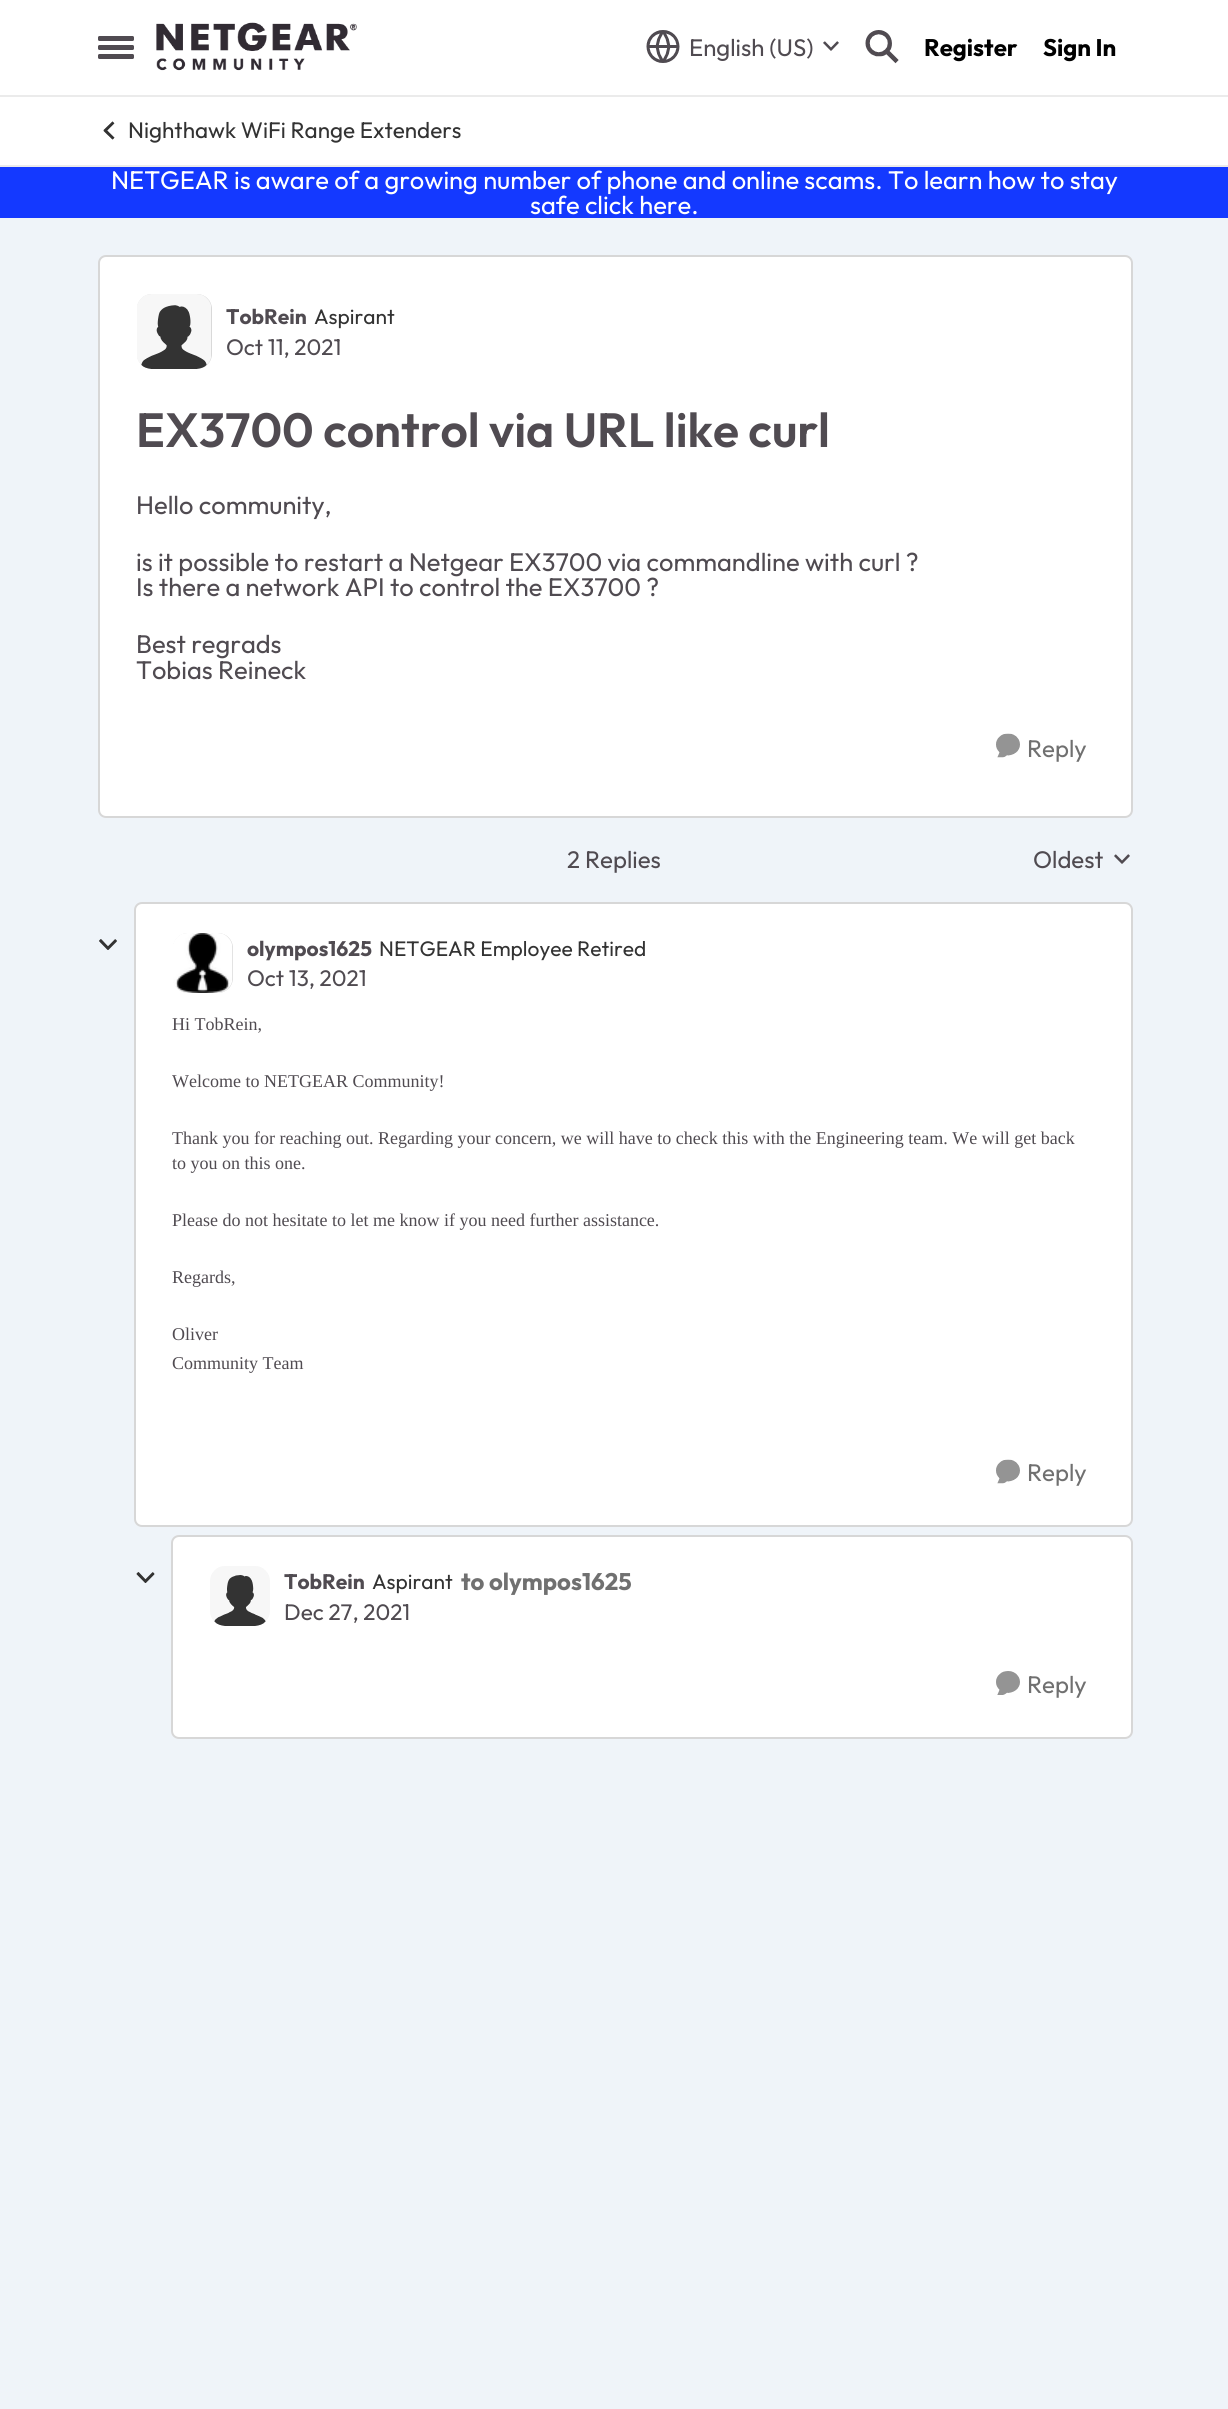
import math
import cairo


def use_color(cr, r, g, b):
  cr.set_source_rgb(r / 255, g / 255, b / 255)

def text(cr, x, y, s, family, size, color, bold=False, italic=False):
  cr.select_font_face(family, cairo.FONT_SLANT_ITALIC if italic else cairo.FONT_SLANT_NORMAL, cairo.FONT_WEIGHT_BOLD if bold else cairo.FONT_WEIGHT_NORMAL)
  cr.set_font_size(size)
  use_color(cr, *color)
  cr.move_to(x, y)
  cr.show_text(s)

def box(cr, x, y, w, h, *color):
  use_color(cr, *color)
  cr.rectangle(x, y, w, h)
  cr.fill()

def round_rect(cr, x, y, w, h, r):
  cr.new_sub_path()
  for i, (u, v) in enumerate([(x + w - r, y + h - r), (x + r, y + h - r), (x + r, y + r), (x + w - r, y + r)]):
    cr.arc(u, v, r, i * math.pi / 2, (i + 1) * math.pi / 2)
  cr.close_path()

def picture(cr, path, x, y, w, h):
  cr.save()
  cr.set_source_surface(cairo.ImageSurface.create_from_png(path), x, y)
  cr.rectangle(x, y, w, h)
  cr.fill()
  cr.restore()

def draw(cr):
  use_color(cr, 239, 244, 249)
  cr.paint()
  box(cr, 0, 0, 1228, 165, 255, 255, 255)
  cr.set_source_rgba(0, 0, 0, 0.08)
  cr.rectangle(0, 95, 1228, 2)
  cr.fill()
  use_color(cr, 80, 75, 81)
  round_rect(cr, 98, 36, 36, 5, 1.5)
  cr.fill()
  round_rect(cr, 98, 45, 36, 5, 1.5)
  cr.fill()
  round_rect(cr, 98, 54, 36, 5, 1.5)
  cr.fill()
  picture(cr, "img_01.png", 156, 22, 201, 49)
  picture(cr, "img_02.png", 646, 30, 34, 33)
  picture(cr, "img_03.png", 823, 41, 16, 10)
  picture(cr, "img_04.png", 865, 30, 34, 34)
  box(cr, 0, 165, 1228, 2, 235, 235, 235)
  picture(cr, "img_05.png", 103, 121, 12, 19)
  box(cr, 0, 167, 1228, 51, 20, 57, 255)
  use_color(cr, 255, 255, 255)
  round_rect(cr, 98, 255, 1035, 563, 8)
  cr.fill()
  round_rect(cr, 99, 256, 1033, 561, 7)
  cr.set_source_rgba(0, 0, 0, 0.16)
  cr.stroke()
  use_color(cr, 217, 217, 217)
  round_rect(cr, 137, 294, 75, 75, 15)
  cr.fill()
  picture(cr, "img_06.png", 137, 294, 74, 75)
  picture(cr, "img_07.png", 996, 733, 24, 25)
  picture(cr, "img_08.png", 1114, 854, 16, 10)
  picture(cr, "img_09.png", 99, 939, 18, 11)
  use_color(cr, 255, 255, 255)
  round_rect(cr, 134, 902, 999, 625, 8)
  cr.fill()
  round_rect(cr, 135, 903, 997, 623, 7)
  cr.set_source_rgba(0, 0, 0, 0.16)
  cr.stroke()
  use_color(cr, 217, 217, 217)
  round_rect(cr, 173, 933, 60, 60, 15)
  cr.fill()
  picture(cr, "img_10.png", 173, 933, 60, 60)
  picture(cr, "img_07.png", 996, 1459, 24, 25)
  picture(cr, "img_11.png", 136, 1572, 19, 11)
  use_color(cr, 255, 255, 255)
  round_rect(cr, 171, 1535, 962, 204, 8)
  cr.fill()
  round_rect(cr, 172, 1536, 960, 202, 7)
  cr.set_source_rgba(0, 0, 0, 0.16)
  cr.stroke()
  picture(cr, "img_12.png", 210, 1566, 60, 60)
  picture(cr, "img_13.png", 996, 1671, 24, 24)
  text(cr, 689, 56, "English (US)", "Outfit", 24, (80, 75, 81))
  text(cr, 924, 56, "Register", "Outfit", 24, (0, 0, 0), bold=True)
  text(cr, 1043, 56, "Sign In", "Outfit", 24, (0, 0, 0), bold=True)
  text(cr, 128, 138, "Nighthawk WiFi Range Extenders", "Outfit", 22.5, (51, 51, 51))
  text(cr, 111, 189, "NETGEAR is aware of a growing number of phone and online scams. To learn how to stay", "Outfit", 25.5, (255, 255, 255))
  text(cr, 530, 214, "safe click here.", "Outfit", 25.5, (255, 255, 255))
  text(cr, 226, 324, "TobRein", "Outfit", 21, (80, 75, 81), bold=True)
  text(cr, 314, 324, "Aspirant", "Outfit", 21, (51, 51, 51))
  text(cr, 226, 355, "Oct 11, 2021", "Outfit", 22.5, (80, 75, 81))
  text(cr, 136, 447, "EX3700 control via URL like curl", "Outfit SemiBold", 48, (80, 75, 81))
  text(cr, 136, 514, "Hello community,", "Outfit", 25.5, (80, 75, 81))
  text(cr, 136, 571, "is it possible to restart a Netgear EX3700 via commandline with curl ?", "Outfit", 25.5, (80, 75, 81))
  text(cr, 136, 596, "Is there a network API to control the EX3700 ?", "Outfit", 25.5, (80, 75, 81))
  text(cr, 136, 653, "Best regrads", "Outfit", 25.5, (80, 75, 81))
  text(cr, 136, 679, "Tobias Reineck", "Outfit", 25.5, (80, 75, 81))
  text(cr, 1027, 757, "Reply", "Outfit", 24, (112, 112, 112))
  text(cr, 567, 868, "2 Replies", "Outfit", 24, (80, 75, 81))
  text(cr, 1033, 868, "Oldest", "Outfit", 24, (80, 75, 81))
  text(cr, 247, 956, "olympos1625", "Outfit", 21, (80, 75, 81), bold=True)
  text(cr, 379, 956, "NETGEAR Employee Retired", "Outfit", 21, (51, 51, 51))
  text(cr, 247, 986, "Oct 13, 2021", "Outfit", 22.5, (80, 75, 81))
  text(cr, 172, 1030, "Hi TobRein,", "Liberation Serif", 18, (80, 75, 81))
  text(cr, 172, 1087, "Welcome to NETGEAR Community!", "Liberation Serif", 18, (80, 75, 81))
  text(cr, 172, 1144, "Thank you for reaching out. Regarding your concern, we will have to check this with the Engineering team. We will get back", "Liberation Serif", 18, (80, 75, 81))
  text(cr, 172, 1169, "to you on this one.", "Liberation Serif", 18, (80, 75, 81))
  text(cr, 172, 1226, "Please do not hesitate to let me know if you need further assistance.", "Liberation Serif", 18, (80, 75, 81))
  text(cr, 172, 1283, "Regards,", "Liberation Serif", 18, (80, 75, 81))
  text(cr, 172, 1340, "Oliver", "Liberation Serif", 18, (80, 75, 81))
  text(cr, 172, 1369, "Community Team", "Liberation Serif", 18, (80, 75, 81))
  text(cr, 1027, 1481, "Reply", "Outfit", 24, (112, 112, 112))
  text(cr, 284, 1589, "TobRein", "Outfit", 21, (80, 75, 81), bold=True)
  text(cr, 372, 1589, "Aspirant", "Outfit", 21, (51, 51, 51))
  text(cr, 461, 1590, "to olympos1625", "Outfit", 24, (112, 112, 112), bold=True)
  text(cr, 284, 1620, "Dec 27, 2021", "Outfit", 22.5, (80, 75, 81))
  text(cr, 1027, 1693, "Reply", "Outfit", 24, (112, 112, 112))


surface = cairo.ImageSurface(cairo.FORMAT_RGB24, 1228, 2409)
cr = cairo.Context(surface)
options = cairo.FontOptions()
options.set_hint_metrics(cairo.HINT_METRICS_OFF)
options.set_hint_style(cairo.HINT_STYLE_NONE)
cr.set_font_options(options)
cr.set_miter_limit(4)
draw(cr)
surface.write_to_png("out.png")
